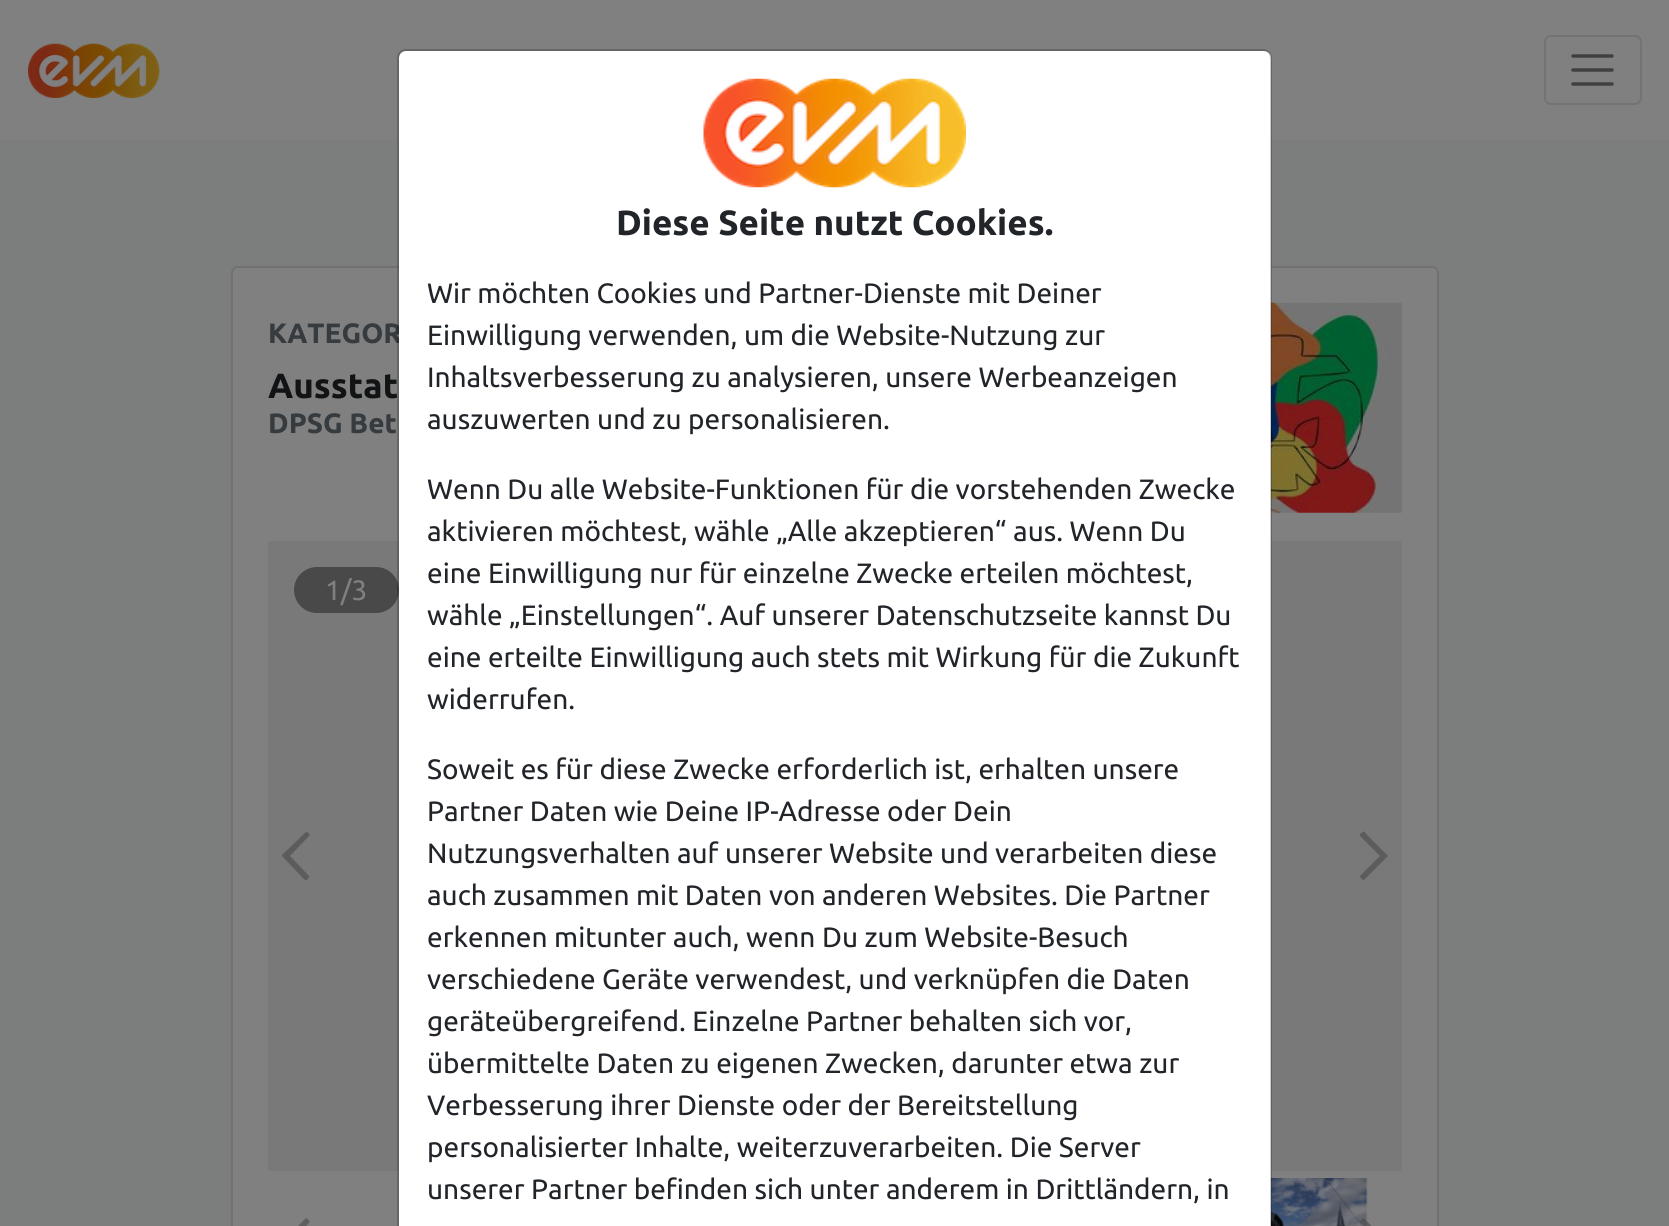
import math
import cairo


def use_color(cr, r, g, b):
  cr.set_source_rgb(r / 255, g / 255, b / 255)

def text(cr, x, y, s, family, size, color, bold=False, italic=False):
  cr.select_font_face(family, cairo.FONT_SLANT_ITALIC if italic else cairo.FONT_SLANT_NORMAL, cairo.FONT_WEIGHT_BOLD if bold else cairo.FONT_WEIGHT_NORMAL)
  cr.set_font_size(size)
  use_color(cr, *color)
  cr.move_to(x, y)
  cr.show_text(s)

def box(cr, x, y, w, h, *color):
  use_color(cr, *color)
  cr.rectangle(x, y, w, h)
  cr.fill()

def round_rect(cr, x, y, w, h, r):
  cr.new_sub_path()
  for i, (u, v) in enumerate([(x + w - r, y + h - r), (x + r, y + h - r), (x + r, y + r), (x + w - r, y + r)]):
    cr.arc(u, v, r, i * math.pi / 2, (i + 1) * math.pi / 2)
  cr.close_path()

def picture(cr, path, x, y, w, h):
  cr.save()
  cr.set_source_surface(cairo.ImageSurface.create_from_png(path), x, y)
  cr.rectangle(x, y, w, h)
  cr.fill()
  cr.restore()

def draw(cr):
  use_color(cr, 128, 128, 128)
  cr.paint()
  picture(cr, "img_01.png", 28, 43, 132, 55)
  round_rect(cr, 1545, 36, 96, 68, 6)
  use_color(cr, 115, 115, 115)
  cr.stroke()
  cr.new_path()
  cr.move_to(1573, 56)
  cr.line_to(1612, 56)
  cr.move_to(1573, 70)
  cr.line_to(1612, 70)
  cr.move_to(1573, 84)
  cr.line_to(1612, 84)
  use_color(cr, 64, 64, 64)
  cr.set_line_width(3.5)
  cr.set_line_cap(cairo.LINE_CAP_ROUND)
  cr.stroke()
  box(cr, 0, 140, 1669, 1086, 124, 125, 125)
  use_color(cr, 128, 128, 128)
  round_rect(cr, 231, 266, 1208, 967, 7)
  cr.fill()
  round_rect(cr, 232, 267, 1206, 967, 6)
  cr.set_source_rgba(0, 0, 0, 0.12)
  cr.set_line_width(2)
  cr.set_line_cap(cairo.LINE_CAP_BUTT)
  cr.stroke()
  picture(cr, "img_02.png", 1271, 302, 131, 211)
  box(cr, 268, 541, 1134, 630, 121, 121, 121)
  use_color(cr, 73, 73, 73)
  round_rect(cr, 294, 567, 105, 46, 23)
  cr.fill()
  use_color(cr, 92, 92, 92)
  cr.new_path()
  cr.move_to(307, 880)
  cr.curve_to(305, 881, 303, 878, 301, 876)
  cr.line_to(282, 856)
  cr.line_to(282, 855)
  cr.line_to(306, 832)
  cr.line_to(307, 832)
  cr.curve_to(308, 833, 311, 834, 309, 836)
  cr.line_to(290, 856)
  cr.line_to(309, 876)
  cr.curve_to(310, 876, 310, 877, 309, 877)
  cr.close_path()
  cr.fill()
  cr.new_path()
  cr.move_to(1363, 832)
  cr.curve_to(1364, 830, 1366, 834, 1368, 836)
  cr.line_to(1388, 856)
  cr.line_to(1387, 857)
  cr.line_to(1364, 880)
  cr.line_to(1363, 880)
  cr.curve_to(1362, 879, 1359, 877, 1360, 876)
  cr.line_to(1380, 856)
  cr.line_to(1360, 836)
  cr.curve_to(1360, 835, 1360, 835, 1360, 834)
  cr.close_path()
  cr.fill()
  picture(cr, "img_03.png", 1271, 1178, 97, 48)
  picture(cr, "img_04.png", 298, 1218, 12, 8)
  picture(cr, "img_05.png", 1360, 1218, 12, 8)
  text(cr, 268, 343, "KATEGOR", "Ubuntu", 28, (54, 59, 63), bold=True)
  text(cr, 268, 398, "Ausstat", "Ubuntu", 35, (17, 19, 21), bold=True)
  text(cr, 268, 433, "DPSG Bet", "Ubuntu", 28, (54, 59, 63), bold=True)
  text(cr, 325, 600, "1/3", "Ubuntu", 28, (128, 128, 128))
  use_color(cr, 255, 255, 255)
  cr.new_path()
  cr.move_to(406, 51)
  cr.line_to(1264, 51)
  cr.curve_to(1268, 51, 1271, 54, 1271, 58)
  cr.line_to(1271, 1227)
  cr.line_to(399, 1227)
  cr.line_to(399, 58)
  cr.curve_to(399, 54, 402, 51, 406, 51)
  cr.close_path()
  cr.fill()
  round_rect(cr, 398, 50, 873, 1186, 8)
  cr.set_source_rgba(0, 0, 0, 0.2)
  cr.stroke()
  picture(cr, "img_06.png", 703, 78, 263, 110)
  text(cr, 616, 235, "Diese Seite nutzt Cookies.", "Ubuntu", 35, (33, 37, 41), bold=True)
  text(cr, 427, 303, "Wir möchten Cookies und Partner-Dienste mit Deiner", "Ubuntu", 28, (33, 37, 41))
  text(cr, 427, 345, "Einwilligung verwenden, um die Website-Nutzung zur", "Ubuntu", 28, (33, 37, 41))
  text(cr, 427, 387, "Inhaltsverbesserung zu analysieren, unsere Werbeanzeigen", "Ubuntu", 28, (33, 37, 41))
  text(cr, 427, 429, "auszuwerten und zu personalisieren.", "Ubuntu", 28, (33, 37, 41))
  text(cr, 427, 499, "Wenn Du alle Website-Funktionen für die vorstehenden Zwecke", "Ubuntu", 28, (33, 37, 41))
  text(cr, 427, 541, "aktivieren möchtest, wähle „Alle akzeptieren“ aus. Wenn Du", "Ubuntu", 28, (33, 37, 41))
  text(cr, 427, 583, "eine Einwilligung nur für einzelne Zwecke erteilen möchtest,", "Ubuntu", 28, (33, 37, 41))
  text(cr, 427, 625, "wähle „Einstellungen“. Auf unserer Datenschutzseite kannst Du", "Ubuntu", 28, (33, 37, 41))
  text(cr, 427, 667, "eine erteilte Einwilligung auch stets mit Wirkung für die Zukunft", "Ubuntu", 28, (33, 37, 41))
  text(cr, 427, 709, "widerrufen.", "Ubuntu", 28, (33, 37, 41))
  text(cr, 427, 779, "Soweit es für diese Zwecke erforderlich ist, erhalten unsere", "Ubuntu", 28, (33, 37, 41))
  text(cr, 427, 821, "Partner Daten wie Deine IP-Adresse oder Dein", "Ubuntu", 28, (33, 37, 41))
  text(cr, 427, 863, "Nutzungsverhalten auf unserer Website und verarbeiten diese", "Ubuntu", 28, (33, 37, 41))
  text(cr, 427, 905, "auch zusammen mit Daten von anderen Websites. Die Partner", "Ubuntu", 28, (33, 37, 41))
  text(cr, 427, 947, "erkennen mitunter auch, wenn Du zum Website-Besuch", "Ubuntu", 28, (33, 37, 41))
  text(cr, 427, 989, "verschiedene Geräte verwendest, und verknüpfen die Daten", "Ubuntu", 28, (33, 37, 41))
  text(cr, 427, 1031, "geräteübergreifend. Einzelne Partner behalten sich vor,", "Ubuntu", 28, (33, 37, 41))
  text(cr, 427, 1073, "übermittelte Daten zu eigenen Zwecken, darunter etwa zur", "Ubuntu", 28, (33, 37, 41))
  text(cr, 427, 1115, "Verbesserung ihrer Dienste oder der Bereitstellung", "Ubuntu", 28, (33, 37, 41))
  text(cr, 427, 1157, "personalisierter Inhalte, weiterzuverarbeiten. Die Server", "Ubuntu", 28, (33, 37, 41))
  text(cr, 427, 1199, "unserer Partner befinden sich unter anderem in Drittländern, in", "Ubuntu", 28, (33, 37, 41))


surface = cairo.ImageSurface(cairo.FORMAT_RGB24, 1669, 1226)
cr = cairo.Context(surface)
options = cairo.FontOptions()
options.set_hint_metrics(cairo.HINT_METRICS_OFF)
options.set_hint_style(cairo.HINT_STYLE_NONE)
cr.set_font_options(options)
cr.set_miter_limit(4)
draw(cr)
surface.write_to_png("out.png")
